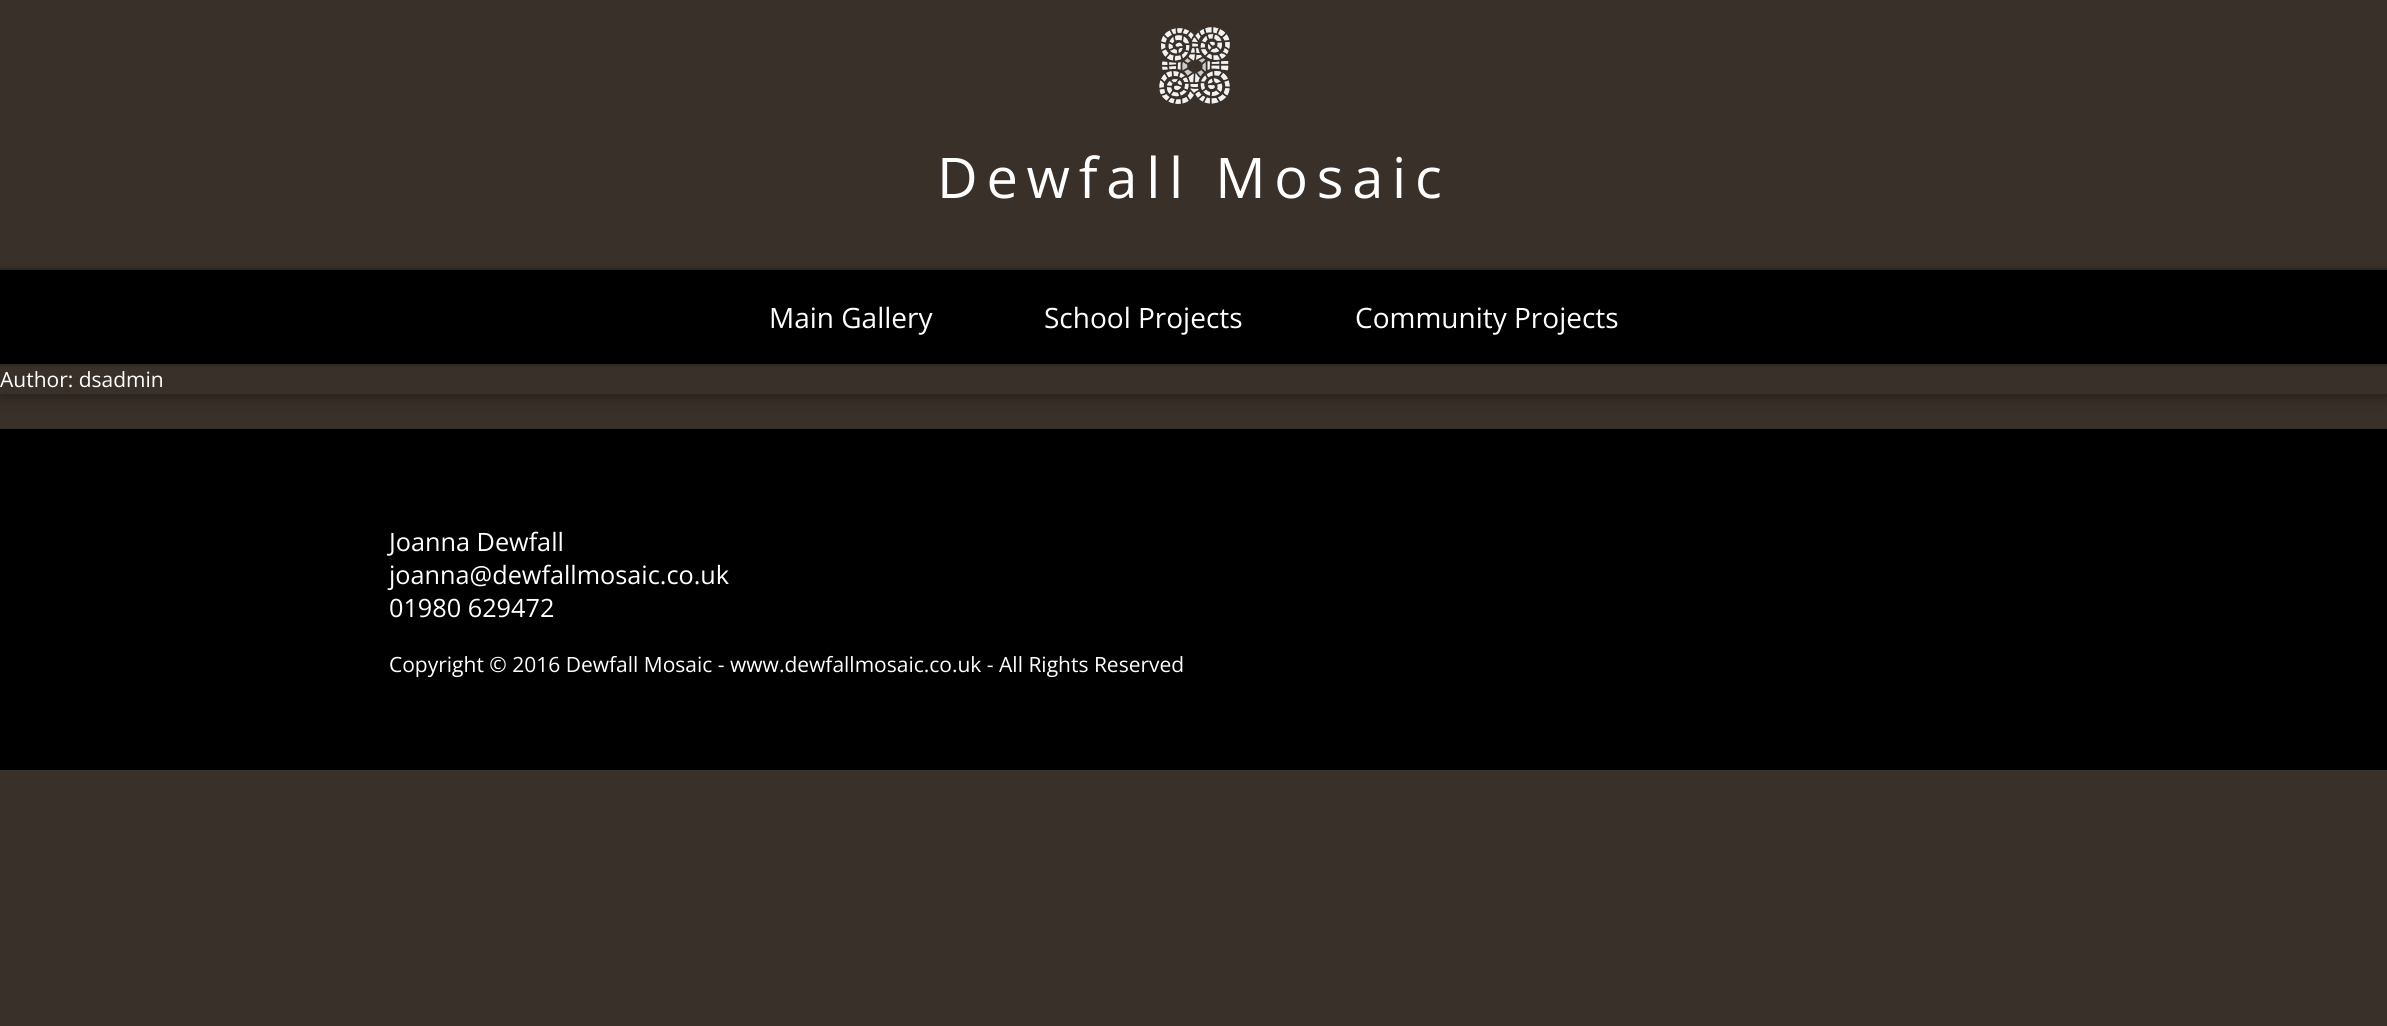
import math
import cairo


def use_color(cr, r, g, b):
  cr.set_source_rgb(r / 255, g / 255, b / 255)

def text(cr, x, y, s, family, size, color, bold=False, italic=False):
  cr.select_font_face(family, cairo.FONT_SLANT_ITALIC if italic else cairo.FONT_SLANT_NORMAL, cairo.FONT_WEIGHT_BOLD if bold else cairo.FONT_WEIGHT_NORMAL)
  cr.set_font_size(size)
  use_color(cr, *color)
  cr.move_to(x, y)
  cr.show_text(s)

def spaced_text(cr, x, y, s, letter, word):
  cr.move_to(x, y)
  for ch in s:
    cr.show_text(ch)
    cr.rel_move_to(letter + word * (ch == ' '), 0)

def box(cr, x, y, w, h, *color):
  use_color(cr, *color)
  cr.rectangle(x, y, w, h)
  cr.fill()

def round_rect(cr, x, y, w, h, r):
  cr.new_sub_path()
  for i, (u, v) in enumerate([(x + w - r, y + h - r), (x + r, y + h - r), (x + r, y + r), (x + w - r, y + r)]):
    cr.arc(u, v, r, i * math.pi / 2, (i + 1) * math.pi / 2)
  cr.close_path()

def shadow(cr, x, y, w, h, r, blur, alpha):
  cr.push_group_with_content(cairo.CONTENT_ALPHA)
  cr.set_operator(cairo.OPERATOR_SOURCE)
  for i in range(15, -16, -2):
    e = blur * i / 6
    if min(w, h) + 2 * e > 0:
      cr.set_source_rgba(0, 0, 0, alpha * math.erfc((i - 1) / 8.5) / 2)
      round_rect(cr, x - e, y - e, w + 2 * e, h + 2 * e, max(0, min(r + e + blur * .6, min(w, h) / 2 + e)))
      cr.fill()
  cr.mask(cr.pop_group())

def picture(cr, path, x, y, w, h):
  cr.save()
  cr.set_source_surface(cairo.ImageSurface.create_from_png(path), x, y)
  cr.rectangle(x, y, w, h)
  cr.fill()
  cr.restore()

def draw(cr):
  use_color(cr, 57, 48, 41)
  cr.paint()
  picture(cr, "img_01.png", 1159, 27, 71, 77)
  use_color(cr, 0, 0, 0)
  shadow(cr, 0, 270, 2387, 94, 0, 2.5, 0.5)
  box(cr, 0, 270, 2387, 94, 0, 0, 0)
  cr.save()
  cr.set_fill_rule(cairo.FILL_RULE_EVEN_ODD)
  cr.new_path()
  cr.move_to(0, 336)
  cr.line_to(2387, 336)
  cr.line_to(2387, 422)
  cr.line_to(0, 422)
  cr.close_path()
  cr.move_to(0, 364)
  cr.line_to(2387, 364)
  cr.line_to(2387, 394)
  cr.line_to(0, 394)
  cr.close_path()
  cr.clip()
  use_color(cr, 0, 0, 0)
  shadow(cr, 0, 364, 2387, 30, 0, 9, 0.5)
  cr.restore()
  box(cr, 0, 429, 2387, 341, 0, 0, 0)
  cr.select_font_face("Open Sans")
  cr.set_font_size(56)
  use_color(cr, 255, 255, 255)
  spaced_text(cr, 937, 198, "Dewfall Mosaic", 8.75, 0)
  text(cr, 769, 328, "Main Gallery", "Open Sans", 28, (255, 255, 255))
  text(cr, 1044, 328, "School Projects", "Open Sans", 28, (255, 255, 255))
  text(cr, 1355, 328, "Community Projects", "Open Sans", 28, (255, 255, 255))
  text(cr, 0, 387, "Author: dsadmin", "Open Sans", 21, (255, 255, 255))
  text(cr, 389, 551, "Joanna Dewfall", "Open Sans", 25.25, (255, 255, 255))
  text(cr, 389, 584, "joanna@dewfallmosaic.co.uk", "Open Sans", 25.25, (255, 255, 255))
  text(cr, 389, 617, "01980 629472", "Open Sans", 25.25, (255, 255, 255))
  text(cr, 389, 672, "Copyright © 2016 Dewfall Mosaic - www.dewfallmosaic.co.uk - All Rights Reserved", "Open Sans", 21, (255, 255, 255))


surface = cairo.ImageSurface(cairo.FORMAT_RGB24, 2387, 1026)
cr = cairo.Context(surface)
options = cairo.FontOptions()
options.set_hint_metrics(cairo.HINT_METRICS_OFF)
options.set_hint_style(cairo.HINT_STYLE_NONE)
cr.set_font_options(options)
cr.set_miter_limit(4)
draw(cr)
surface.write_to_png("out.png")
